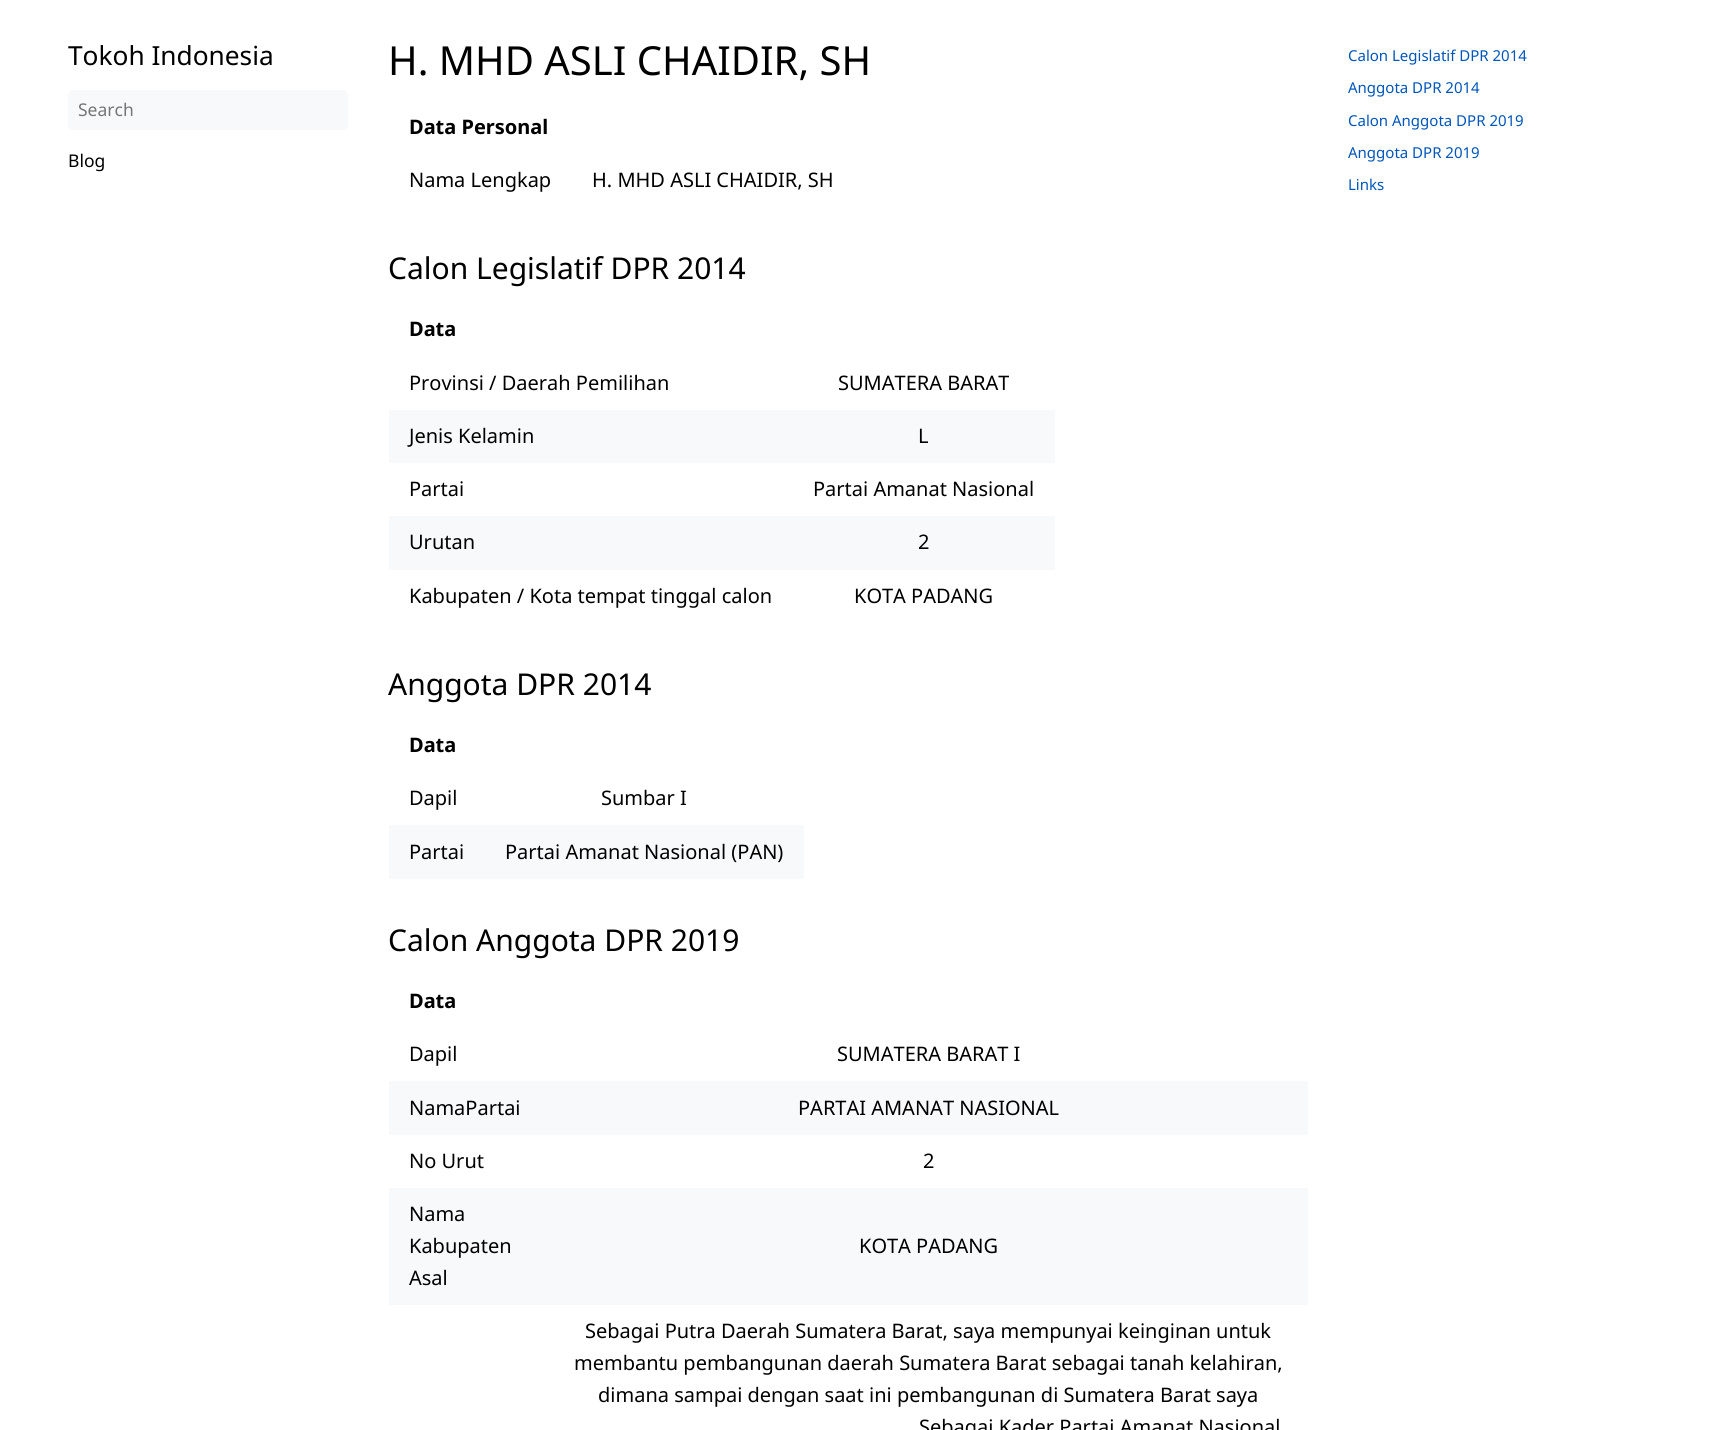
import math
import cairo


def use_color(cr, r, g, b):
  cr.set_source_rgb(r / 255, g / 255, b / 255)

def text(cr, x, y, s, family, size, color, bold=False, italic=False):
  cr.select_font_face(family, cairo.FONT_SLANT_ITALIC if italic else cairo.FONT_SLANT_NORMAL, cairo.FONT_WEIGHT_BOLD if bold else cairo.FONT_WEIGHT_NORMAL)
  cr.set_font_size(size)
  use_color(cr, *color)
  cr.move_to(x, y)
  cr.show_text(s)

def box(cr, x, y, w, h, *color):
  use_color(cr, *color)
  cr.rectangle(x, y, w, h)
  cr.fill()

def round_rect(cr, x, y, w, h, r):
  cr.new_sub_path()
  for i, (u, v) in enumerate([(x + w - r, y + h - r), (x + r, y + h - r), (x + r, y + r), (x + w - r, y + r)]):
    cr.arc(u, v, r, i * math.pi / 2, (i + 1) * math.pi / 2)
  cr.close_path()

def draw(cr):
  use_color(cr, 255, 255, 255)
  cr.paint()
  use_color(cr, 248, 249, 250)
  round_rect(cr, 68, 90, 280, 40, 5)
  cr.fill()
  box(cr, 389, 410, 666, 53, 248, 249, 250)
  box(cr, 389, 516, 666, 54, 248, 249, 250)
  box(cr, 389, 825, 415, 54, 248, 249, 250)
  box(cr, 389, 1081, 919, 54, 248, 249, 250)
  box(cr, 389, 1188, 919, 117, 248, 249, 250)
  text(cr, 68, 65, "Tokoh Indonesia", "Noto Sans", 26.25, (0, 0, 0))
  text(cr, 78, 116, "Search", "Noto Sans", 17.5, (117, 117, 117))
  text(cr, 68, 167, "Blog", "Noto Sans", 17.5, (0, 0, 0))
  text(cr, 388, 75, "H. MHD ASLI CHAIDIR, SH", "Noto Sans", 40, (0, 0, 0))
  text(cr, 409, 134, "Data Personal", "Noto Sans", 20, (0, 0, 0), bold=True)
  text(cr, 409, 187, "Nama Lengkap", "Noto Sans", 20, (0, 0, 0))
  text(cr, 592, 187, "H. MHD ASLI CHAIDIR, SH", "Noto Sans", 20, (0, 0, 0))
  text(cr, 388, 279, "Calon Legislatif DPR 2014", "Noto Sans", 30, (0, 0, 0))
  text(cr, 409, 336, "Data", "Noto Sans", 20, (0, 0, 0), bold=True)
  text(cr, 409, 390, "Provinsi / Daerah Pemilihan", "Noto Sans", 20, (0, 0, 0))
  text(cr, 838, 390, "SUMATERA BARAT", "Noto Sans", 20, (0, 0, 0))
  text(cr, 409, 443, "Jenis Kelamin", "Noto Sans", 20, (0, 0, 0))
  text(cr, 918, 443, "L", "Noto Sans", 20, (0, 0, 0))
  text(cr, 409, 496, "Partai", "Noto Sans", 20, (0, 0, 0))
  text(cr, 813, 496, "Partai Amanat Nasional", "Noto Sans", 20, (0, 0, 0))
  text(cr, 409, 549, "Urutan", "Noto Sans", 20, (0, 0, 0))
  text(cr, 918, 549, "2", "Noto Sans", 20, (0, 0, 0))
  text(cr, 409, 603, "Kabupaten / Kota tempat tinggal calon", "Noto Sans", 20, (0, 0, 0))
  text(cr, 854, 603, "KOTA PADANG", "Noto Sans", 20, (0, 0, 0))
  text(cr, 388, 695, "Anggota DPR 2014", "Noto Sans", 30, (0, 0, 0))
  text(cr, 409, 752, "Data", "Noto Sans", 20, (0, 0, 0), bold=True)
  text(cr, 409, 805, "Dapil", "Noto Sans", 20, (0, 0, 0))
  text(cr, 601, 805, "Sumbar I", "Noto Sans", 20, (0, 0, 0))
  text(cr, 409, 859, "Partai", "Noto Sans", 20, (0, 0, 0))
  text(cr, 505, 859, "Partai Amanat Nasional (PAN)", "Noto Sans", 20, (0, 0, 0))
  text(cr, 388, 951, "Calon Anggota DPR 2019", "Noto Sans", 30, (0, 0, 0))
  text(cr, 409, 1008, "Data", "Noto Sans", 20, (0, 0, 0), bold=True)
  text(cr, 409, 1061, "Dapil", "Noto Sans", 20, (0, 0, 0))
  text(cr, 837, 1061, "SUMATERA BARAT I", "Noto Sans", 20, (0, 0, 0))
  text(cr, 409, 1115, "NamaPartai", "Noto Sans", 20, (0, 0, 0))
  text(cr, 798, 1115, "PARTAI AMANAT NASIONAL", "Noto Sans", 20, (0, 0, 0))
  text(cr, 409, 1168, "No Urut", "Noto Sans", 20, (0, 0, 0))
  text(cr, 923, 1168, "2", "Noto Sans", 20, (0, 0, 0))
  text(cr, 409, 1221, "Nama", "Noto Sans", 20, (0, 0, 0))
  text(cr, 409, 1253, "Kabupaten", "Noto Sans", 20, (0, 0, 0))
  text(cr, 409, 1285, "Asal", "Noto Sans", 20, (0, 0, 0))
  text(cr, 859, 1253, "KOTA PADANG", "Noto Sans", 20, (0, 0, 0))
  text(cr, 585, 1338, "Sebagai Putra Daerah Sumatera Barat, saya mempunyai keinginan untuk", "Noto Sans", 20, (0, 0, 0))
  text(cr, 574, 1370, "membantu pembangunan daerah Sumatera Barat sebagai tanah kelahiran,", "Noto Sans", 20, (0, 0, 0))
  text(cr, 598, 1402, "dimana sampai dengan saat ini pembangunan di Sumatera Barat saya", "Noto Sans", 20, (0, 0, 0))
  text(cr, 919, 1434, "Sebagai Kader Partai Amanat Nasional", "Noto Sans", 20, (0, 0, 0))
  text(cr, 1348, 61, "Calon Legislatif DPR 2014", "Noto Sans", 15, (0, 85, 187))
  text(cr, 1348, 93, "Anggota DPR 2014", "Noto Sans", 15, (0, 85, 187))
  text(cr, 1348, 126, "Calon Anggota DPR 2019", "Noto Sans", 15, (0, 85, 187))
  text(cr, 1348, 158, "Anggota DPR 2019", "Noto Sans", 15, (0, 85, 187))
  text(cr, 1348, 190, "Links", "Noto Sans", 15, (0, 85, 187))


surface = cairo.ImageSurface(cairo.FORMAT_RGB24, 1713, 1430)
cr = cairo.Context(surface)
options = cairo.FontOptions()
options.set_hint_metrics(cairo.HINT_METRICS_OFF)
options.set_hint_style(cairo.HINT_STYLE_NONE)
cr.set_font_options(options)
cr.set_miter_limit(4)
draw(cr)
surface.write_to_png("out.png")
